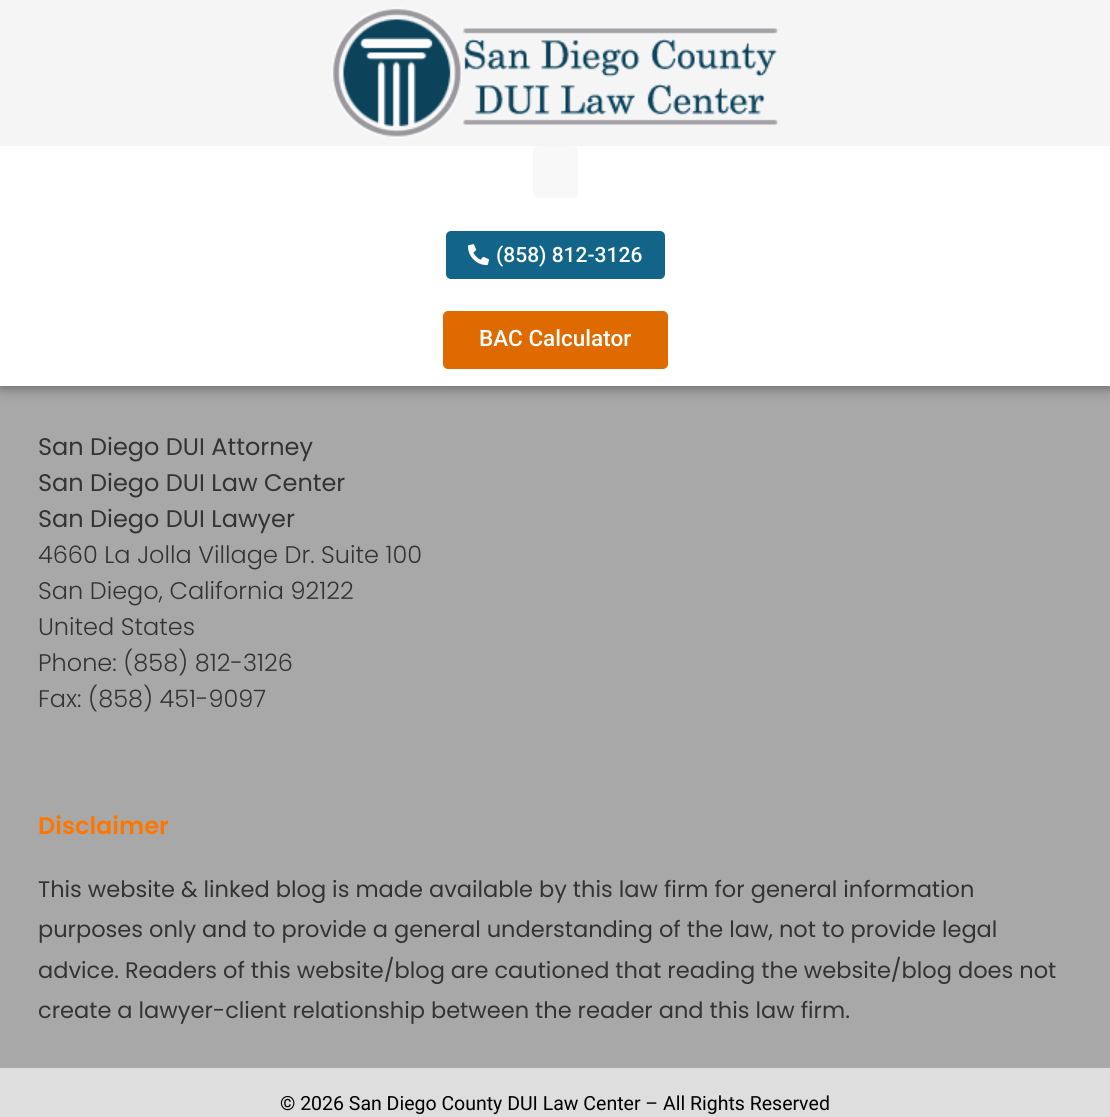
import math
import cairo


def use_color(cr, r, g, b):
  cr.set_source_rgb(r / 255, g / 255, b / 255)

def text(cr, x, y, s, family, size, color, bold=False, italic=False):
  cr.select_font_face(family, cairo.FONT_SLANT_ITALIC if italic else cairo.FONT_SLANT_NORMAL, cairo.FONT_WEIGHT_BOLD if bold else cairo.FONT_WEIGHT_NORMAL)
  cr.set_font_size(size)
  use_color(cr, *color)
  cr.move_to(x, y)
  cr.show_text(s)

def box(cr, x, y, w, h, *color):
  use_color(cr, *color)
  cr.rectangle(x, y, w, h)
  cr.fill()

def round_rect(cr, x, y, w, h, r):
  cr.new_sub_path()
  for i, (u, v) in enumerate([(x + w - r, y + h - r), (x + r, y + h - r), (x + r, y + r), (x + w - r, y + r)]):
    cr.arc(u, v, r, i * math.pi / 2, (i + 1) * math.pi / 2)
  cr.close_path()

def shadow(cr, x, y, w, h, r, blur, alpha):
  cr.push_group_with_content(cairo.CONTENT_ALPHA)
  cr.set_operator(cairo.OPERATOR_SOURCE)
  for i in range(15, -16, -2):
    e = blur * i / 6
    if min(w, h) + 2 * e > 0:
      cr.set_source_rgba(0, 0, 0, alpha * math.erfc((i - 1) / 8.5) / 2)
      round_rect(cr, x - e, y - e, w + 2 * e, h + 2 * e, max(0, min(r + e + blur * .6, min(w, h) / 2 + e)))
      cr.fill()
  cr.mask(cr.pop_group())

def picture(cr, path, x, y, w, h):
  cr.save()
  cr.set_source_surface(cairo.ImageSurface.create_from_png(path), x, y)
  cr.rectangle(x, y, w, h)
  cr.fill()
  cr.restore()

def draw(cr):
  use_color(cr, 168, 168, 168)
  cr.paint()
  use_color(cr, 0, 0, 0)
  shadow(cr, 0, 0, 1110, 386, 0, 7.5, 0.5)
  box(cr, 0, 146, 1110, 240, 255, 255, 255)
  box(cr, 0, 0, 1110, 146, 245, 245, 245)
  picture(cr, "img_01.png", 331, 7, 447, 131)
  use_color(cr, 248, 248, 248)
  round_rect(cr, 533, 146, 45, 52, 5)
  cr.fill()
  use_color(cr, 18, 100, 137)
  round_rect(cr, 446, 231, 219, 48, 5)
  cr.fill()
  picture(cr, "img_02.png", 468, 244, 21, 22)
  use_color(cr, 223, 107, 0)
  round_rect(cr, 443, 311, 225, 58, 5)
  cr.fill()
  box(cr, 0, 1068, 1110, 49, 222, 222, 222)
  text(cr, 496, 262, "(858) 812-3126", "Roboto Medium", 21, (255, 255, 255))
  text(cr, 479, 346, "BAC Calculator", "Roboto Medium", 22.5, (255, 255, 255))
  text(cr, 38, 455, "San Diego DUI Attorney", "Poppins", 24, (51, 51, 51))
  text(cr, 38, 491, "San Diego DUI Law Center", "Poppins", 24, (51, 51, 51))
  text(cr, 38, 527, "San Diego DUI Lawyer", "Poppins", 24, (51, 51, 51))
  text(cr, 38, 563, "4660 La Jolla Village Dr. Suite 100", "Poppins Light", 24, (51, 51, 51))
  text(cr, 38, 599, "San Diego, California 92122", "Poppins Light", 24, (51, 51, 51))
  text(cr, 38, 635, "United States", "Poppins Light", 24, (51, 51, 51))
  text(cr, 38, 671, "Phone: (858) 812-3126", "Poppins Light", 24, (51, 51, 51))
  text(cr, 38, 707, "Fax: (858) 451-9097", "Poppins Light", 24, (51, 51, 51))
  text(cr, 38, 834, "Disclaimer", "Poppins SemiBold", 24, (253, 119, 0))
  text(cr, 38, 897, "This website & linked blog is made available by this law firm for general information", "Poppins", 22.5, (51, 51, 51))
  text(cr, 38, 937, "purposes only and to provide a general understanding of the law, not to provide legal", "Poppins", 22.5, (51, 51, 51))
  text(cr, 38, 978, "advice. Readers of this website/blog are cautioned that reading the website/blog does not", "Poppins", 22.5, (51, 51, 51))
  text(cr, 38, 1018, "create a lawyer-client relationship between the reader and this law firm.", "Poppins", 22.5, (51, 51, 51))
  text(cr, 280, 1110, "© 2026 San Diego County DUI Law Center – All Rights Reserved", "Roboto", 19.5, (0, 0, 0))


surface = cairo.ImageSurface(cairo.FORMAT_RGB24, 1110, 1117)
cr = cairo.Context(surface)
options = cairo.FontOptions()
options.set_hint_metrics(cairo.HINT_METRICS_OFF)
options.set_hint_style(cairo.HINT_STYLE_NONE)
cr.set_font_options(options)
cr.set_miter_limit(4)
draw(cr)
surface.write_to_png("out.png")
